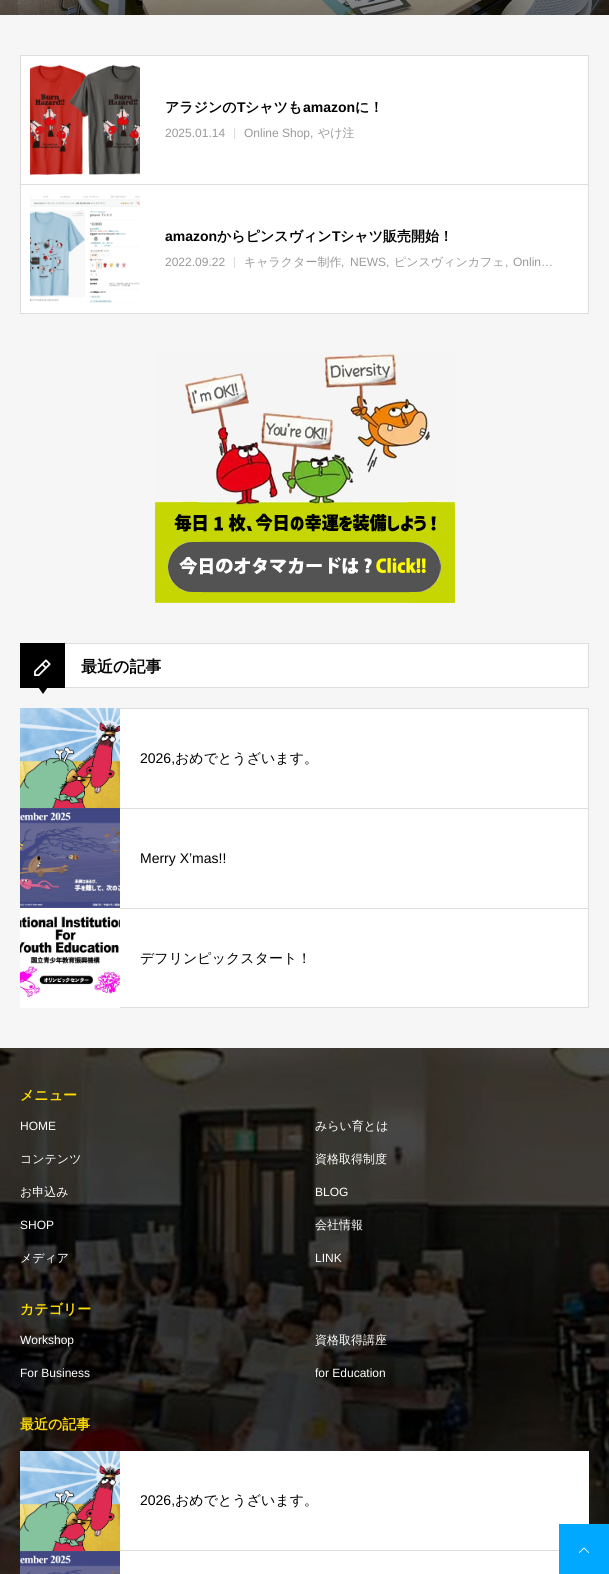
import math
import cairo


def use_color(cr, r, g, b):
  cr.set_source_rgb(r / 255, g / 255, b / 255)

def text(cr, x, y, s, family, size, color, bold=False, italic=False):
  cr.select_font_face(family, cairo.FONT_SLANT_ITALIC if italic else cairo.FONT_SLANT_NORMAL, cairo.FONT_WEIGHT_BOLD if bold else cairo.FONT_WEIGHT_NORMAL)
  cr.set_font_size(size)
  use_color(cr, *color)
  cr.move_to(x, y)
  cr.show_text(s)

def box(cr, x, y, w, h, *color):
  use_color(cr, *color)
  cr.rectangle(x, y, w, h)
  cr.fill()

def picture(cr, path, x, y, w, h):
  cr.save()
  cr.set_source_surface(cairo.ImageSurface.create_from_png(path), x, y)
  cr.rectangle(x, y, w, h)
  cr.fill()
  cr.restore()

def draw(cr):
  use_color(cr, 246, 246, 246)
  cr.paint()
  picture(cr, "img_01.png", 0, 0, 609, 15)
  use_color(cr, 255, 255, 255)
  cr.rectangle(20.5, 55.5, 568, 129)
  cr.fill_preserve()
  use_color(cr, 221, 221, 221)
  cr.set_line_width(1)
  cr.stroke()
  picture(cr, "img_02.png", 30, 65, 110, 110)
  box(cr, 234, 128, 1, 11, 221, 221, 221)
  use_color(cr, 255, 255, 255)
  cr.rectangle(20.5, 184.5, 568, 129)
  cr.fill_preserve()
  use_color(cr, 221, 221, 221)
  cr.stroke()
  picture(cr, "img_03.png", 30, 195, 110, 108)
  box(cr, 234, 257, 1, 11, 221, 221, 221)
  picture(cr, "img_04.png", 155, 353, 300, 250)
  box(cr, 65, 644, 523, 43, 255, 255, 255)
  cr.rectangle(20.5, 643.5, 568, 44)
  use_color(cr, 221, 221, 221)
  cr.stroke()
  box(cr, 20, 643, 45, 45, 0, 0, 0)
  picture(cr, "img_05.png", 34, 659, 17, 18)
  cr.new_path()
  cr.move_to(36, 684)
  cr.line_to(50, 684)
  cr.line_to(43, 694)
  cr.close_path()
  cr.fill()
  box(cr, 120, 709, 468, 99, 255, 255, 255)
  picture(cr, "img_06.png", 20, 708, 100, 100)
  box(cr, 120, 708, 469, 1, 221, 221, 221)
  box(cr, 588, 708, 1, 100, 221, 221, 221)
  box(cr, 120, 809, 468, 99, 255, 255, 255)
  picture(cr, "img_07.png", 20, 808, 100, 100)
  box(cr, 120, 808, 469, 1, 221, 221, 221)
  box(cr, 588, 808, 1, 100, 221, 221, 221)
  box(cr, 20, 908, 568, 100, 255, 255, 255)
  picture(cr, "img_08.png", 20, 916, 100, 82)
  box(cr, 120, 908, 469, 1, 221, 221, 221)
  box(cr, 588, 908, 1, 100, 221, 221, 221)
  box(cr, 120, 1007, 469, 1, 221, 221, 221)
  picture(cr, "img_09.png", 0, 1048, 609, 526)
  box(cr, 120, 1451, 469, 99, 255, 255, 255)
  picture(cr, "img_10.png", 20, 1451, 100, 100)
  box(cr, 120, 1550, 439, 1, 221, 221, 221)
  box(cr, 120, 1551, 439, 23, 255, 255, 255)
  picture(cr, "img_11.png", 20, 1551, 100, 23)
  box(cr, 559, 1524, 50, 50, 0, 168, 255)
  picture(cr, "img_12.png", 578, 1547, 12, 6)
  text(cr, 165, 112, "アラジンの", "WenQuanYi Zen Hei", 14, (0, 0, 0), bold=True)
  text(cr, 237, 112, "T", "Liberation Sans", 14, (0, 0, 0), bold=True)
  text(cr, 245, 112, "シャツも", "WenQuanYi Zen Hei", 14, (0, 0, 0), bold=True)
  text(cr, 303, 112, "amazon", "Liberation Sans", 14, (0, 0, 0), bold=True)
  text(cr, 355, 112, "に！", "WenQuanYi Zen Hei", 14, (0, 0, 0), bold=True)
  text(cr, 165, 137, "2025.01.14", "Liberation Sans", 12, (153, 153, 153))
  text(cr, 244, 137, "Online Shop,", "Liberation Sans", 12, (153, 153, 153))
  text(cr, 318, 137, "やけ注", "WenQuanYi Zen Hei Medium", 12, (153, 153, 153))
  text(cr, 165, 241, "amazon", "Liberation Sans", 14, (0, 0, 0), bold=True)
  text(cr, 217, 241, "からピンスヴィン", "WenQuanYi Zen Hei", 14, (0, 0, 0), bold=True)
  text(cr, 332, 241, "T", "Liberation Sans", 14, (0, 0, 0), bold=True)
  text(cr, 340, 241, "シャツ販売開始！", "WenQuanYi Zen Hei", 14, (0, 0, 0), bold=True)
  text(cr, 165, 266, "2022.09.22", "Liberation Sans", 12, (153, 153, 153))
  text(cr, 244, 266, "キャラクター制作", "WenQuanYi Zen Hei Medium", 12, (153, 153, 153))
  text(cr, 341, 266, ",", "Liberation Sans", 12, (153, 153, 153))
  text(cr, 350, 266, "NEWS,", "Liberation Sans", 12, (153, 153, 153))
  text(cr, 394, 266, "ピンスヴィンカフェ", "WenQuanYi Zen Hei Medium", 12, (153, 153, 153))
  text(cr, 505, 266, ",", "Liberation Sans", 12, (153, 153, 153))
  text(cr, 513, 266, "Onlin…", "Liberation Sans", 12, (153, 153, 153))
  text(cr, 81, 672, "最近の記事", "WenQuanYi Zen Hei", 16, (0, 0, 0), bold=True)
  text(cr, 140, 763, "2026,", "Liberation Sans", 14, (0, 0, 0))
  text(cr, 175, 763, "おめでとうざいます。", "WenQuanYi Zen Hei Medium", 14, (0, 0, 0))
  text(cr, 140, 863, "Merry X’mas!!", "Liberation Sans", 14, (0, 0, 0))
  text(cr, 140, 963, "デフリンピックスタート！", "WenQuanYi Zen Hei Medium", 14, (0, 0, 0))
  text(cr, 20, 1100, "メニュー", "WenQuanYi Zen Hei", 14, (255, 220, 0), bold=True)
  text(cr, 20, 1130, "HOME", "Liberation Sans", 12, (255, 255, 255))
  text(cr, 315, 1130, "みらい育とは", "WenQuanYi Zen Hei Medium", 12, (255, 255, 255))
  text(cr, 20, 1163, "コンテンツ", "WenQuanYi Zen Hei Medium", 12, (255, 255, 255))
  text(cr, 315, 1163, "資格取得制度", "WenQuanYi Zen Hei Medium", 12, (255, 255, 255))
  text(cr, 20, 1196, "お申込み", "WenQuanYi Zen Hei Medium", 12, (255, 255, 255))
  text(cr, 315, 1196, "BLOG", "Liberation Sans", 12, (255, 255, 255))
  text(cr, 20, 1229, "SHOP", "Liberation Sans", 12, (255, 255, 255))
  text(cr, 315, 1229, "会社情報", "WenQuanYi Zen Hei Medium", 12, (255, 255, 255))
  text(cr, 20, 1262, "メディア", "WenQuanYi Zen Hei Medium", 12, (255, 255, 255))
  text(cr, 315, 1262, "LINK", "Liberation Sans", 12, (255, 255, 255))
  text(cr, 20, 1314, "カテゴリー", "WenQuanYi Zen Hei", 14, (255, 220, 0), bold=True)
  text(cr, 20, 1344, "Workshop", "Liberation Sans", 12, (255, 255, 255))
  text(cr, 315, 1344, "資格取得講座", "WenQuanYi Zen Hei Medium", 12, (255, 255, 255))
  text(cr, 20, 1377, "For Business", "Liberation Sans", 12, (255, 255, 255))
  text(cr, 315, 1377, "for Education", "Liberation Sans", 12, (255, 255, 255))
  text(cr, 20, 1429, "最近の記事", "WenQuanYi Zen Hei", 14, (255, 220, 0), bold=True)
  text(cr, 140, 1505, "2026,", "Liberation Sans", 14, (0, 0, 0))
  text(cr, 175, 1505, "おめでとうざいます。", "WenQuanYi Zen Hei Medium", 14, (0, 0, 0))


surface = cairo.ImageSurface(cairo.FORMAT_RGB24, 609, 1574)
cr = cairo.Context(surface)
options = cairo.FontOptions()
options.set_hint_metrics(cairo.HINT_METRICS_OFF)
options.set_hint_style(cairo.HINT_STYLE_NONE)
cr.set_font_options(options)
cr.set_miter_limit(4)
draw(cr)
surface.write_to_png("out.png")
